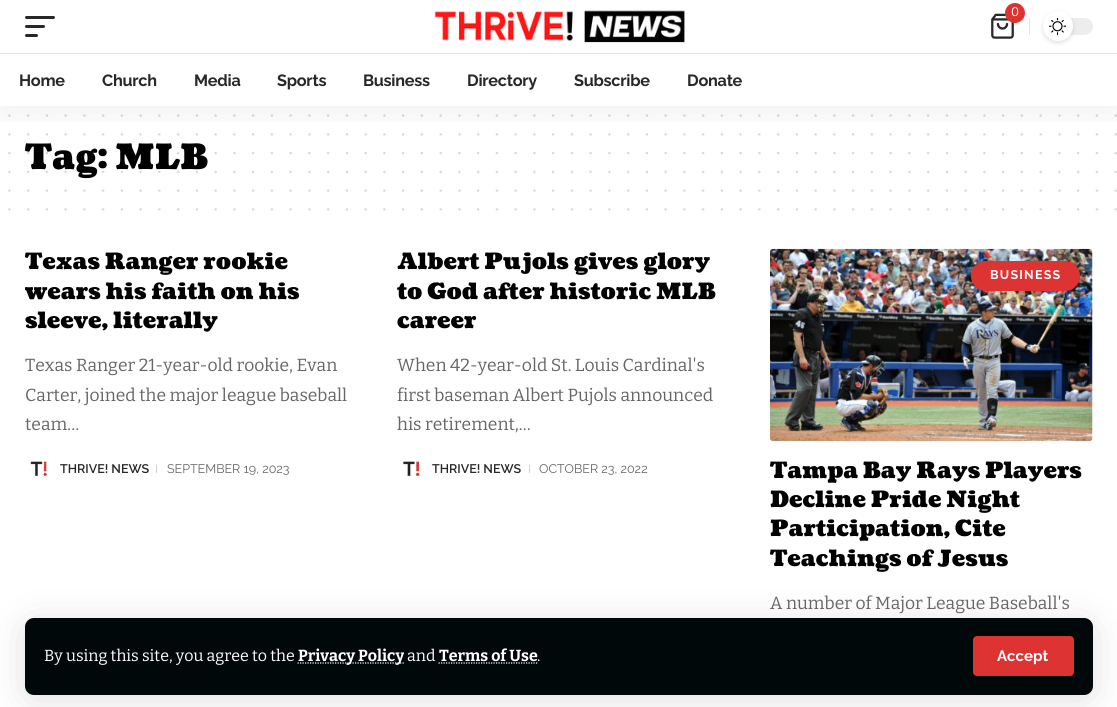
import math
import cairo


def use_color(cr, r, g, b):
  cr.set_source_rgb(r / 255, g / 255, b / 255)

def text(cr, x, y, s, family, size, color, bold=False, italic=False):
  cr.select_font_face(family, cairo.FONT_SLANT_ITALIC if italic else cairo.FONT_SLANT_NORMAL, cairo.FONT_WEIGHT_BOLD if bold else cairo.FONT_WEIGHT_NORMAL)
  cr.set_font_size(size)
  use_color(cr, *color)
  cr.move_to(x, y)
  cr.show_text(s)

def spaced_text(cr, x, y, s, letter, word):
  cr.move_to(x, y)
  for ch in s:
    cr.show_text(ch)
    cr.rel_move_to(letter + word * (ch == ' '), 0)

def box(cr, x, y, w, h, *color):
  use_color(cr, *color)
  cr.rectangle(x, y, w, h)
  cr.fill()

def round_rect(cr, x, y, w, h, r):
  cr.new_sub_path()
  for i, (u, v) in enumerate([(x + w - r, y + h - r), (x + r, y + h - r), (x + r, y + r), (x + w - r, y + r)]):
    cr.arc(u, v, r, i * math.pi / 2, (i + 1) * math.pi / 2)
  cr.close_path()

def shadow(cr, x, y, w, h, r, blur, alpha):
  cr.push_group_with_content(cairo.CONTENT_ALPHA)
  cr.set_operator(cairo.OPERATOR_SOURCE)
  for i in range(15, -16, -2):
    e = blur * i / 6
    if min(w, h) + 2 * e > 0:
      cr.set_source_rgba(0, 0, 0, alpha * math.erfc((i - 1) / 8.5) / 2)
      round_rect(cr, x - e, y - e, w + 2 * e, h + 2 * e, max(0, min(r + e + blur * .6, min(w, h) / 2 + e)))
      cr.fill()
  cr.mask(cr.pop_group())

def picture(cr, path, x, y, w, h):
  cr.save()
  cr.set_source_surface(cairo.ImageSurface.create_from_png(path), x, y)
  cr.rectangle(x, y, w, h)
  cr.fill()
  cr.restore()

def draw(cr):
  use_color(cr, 255, 255, 255)
  cr.paint()
  use_color(cr, 0, 0, 0)
  shadow(cr, 25, 623, 1068, 77, 9, 19, 0.12)
  use_color(cr, 0, 8, 10)
  round_rect(cr, 25, 618, 1068, 77, 9)
  cr.fill()
  cr.new_path()
  cr.move_to(297.5, 663)
  cr.line_to(404, 663)
  use_color(cr, 255, 255, 255)
  cr.set_line_width(1.2)
  cr.set_dash([1.25, 1.25])
  cr.stroke()
  cr.new_path()
  cr.move_to(438.5, 663)
  cr.line_to(537.5, 663)
  cr.stroke()
  use_color(cr, 221, 51, 51)
  round_rect(cr, 973, 636, 101, 40, 4)
  cr.fill()
  cr.new_path()
  cr.move_to(9.4, 115.6)
  cr.line_to(1115.9, 115.6)
  use_color(cr, 217, 217, 217)
  cr.set_line_width(2.5)
  cr.set_line_cap(cairo.LINE_CAP_ROUND)
  cr.set_dash([0, 18.75])
  cr.stroke()
  cr.new_path()
  cr.move_to(9.4, 134.4)
  cr.line_to(1115.9, 134.4)
  cr.stroke()
  cr.new_path()
  cr.move_to(9.4, 190.6)
  cr.line_to(1115.9, 190.6)
  cr.stroke()
  cr.new_path()
  cr.move_to(9.4, 209.4)
  cr.line_to(1115.9, 209.4)
  cr.stroke()
  picture(cr, "img_04.png", 30, 461, 18, 16)
  box(cr, 156, 465, 1, 8, 209, 209, 209)
  picture(cr, "img_05.png", 403, 461, 17, 16)
  box(cr, 529, 465, 1, 8, 209, 209, 209)
  picture(cr, "img_06.png", 770, 248, 323, 194)
  use_color(cr, 221, 51, 51)
  round_rect(cr, 971, 261, 109, 30, 15)
  cr.fill()
  text(cr, 44, 661, "By using this site, you agree to the", "Bitter", 16, (255, 255, 255))
  text(cr, 298, 661, "Privacy Policy", "Bitter", 16, (255, 255, 255), bold=True)
  text(cr, 407, 661, "and", "Bitter", 16, (255, 255, 255))
  text(cr, 439, 661, "Terms of Use", "Bitter", 16, (255, 255, 255), bold=True)
  text(cr, 537, 661, ".", "Bitter", 16, (255, 255, 255))
  text(cr, 997, 661, "Accept", "Raleway", 15, (255, 255, 255), bold=True)
  text(cr, 25, 169, "Tag: MLB", "Coustard Black", 35, (0, 0, 0))
  cr.new_path()
  cr.move_to(9.4, 153.1)
  cr.line_to(1115.9, 153.1)
  cr.set_source_rgba(0, 0, 0, 0.15)
  cr.stroke()
  cr.save()
  cr.rectangle(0, 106, 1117, 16)
  cr.clip()
  use_color(cr, 0, 0, 0)
  shadow(cr, 0, 5, 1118, 106, 0, 19, 0.07)
  cr.restore()
  picture(cr, "img_02.png", 991, 13, 23, 26)
  use_color(cr, 221, 51, 51)
  cr.arc(1015, 13, 10, 0, 2 * math.pi)
  cr.fill()
  text(cr, 1011, 16, "0", "Bitter", 12.5, (255, 255, 255))
  cr.select_font_face("Raleway", cairo.FONT_SLANT_NORMAL, cairo.FONT_WEIGHT_BOLD)
  cr.set_font_size(16.25)
  use_color(cr, 40, 40, 40)
  spaced_text(cr, 687, 86, "Donate", -0.25, 0)
  spaced_text(cr, 574, 86, "Subscribe", -0.25, 0)
  spaced_text(cr, 467, 86, "Directory", -0.25, 0)
  spaced_text(cr, 363, 86, "Business", -0.25, 0)
  spaced_text(cr, 277, 86, "Sports", -0.25, 0)
  spaced_text(cr, 194, 86, "Media", -0.25, 0)
  spaced_text(cr, 102, 86, "Church", -0.25, 0)
  spaced_text(cr, 19, 86, "Home", -0.25, 0)
  box(cr, 0, 53, 1117, 1, 228, 228, 228)
  use_color(cr, 237, 237, 237)
  round_rect(cr, 1043, 18, 50, 17, 8.5)
  cr.fill()
  use_color(cr, 0, 0, 0)
  shadow(cr, 1043, 13, 30, 30, 15, 2.5, 0.12)
  use_color(cr, 255, 255, 255)
  cr.arc(1058, 26, 15, 0, 2 * math.pi)
  cr.fill()
  picture(cr, "img_03.png", 1049, 18, 17, 17)
  box(cr, 1029, 18, 1, 17, 228, 228, 228)
  use_color(cr, 40, 40, 40)
  round_rect(cr, 25, 34, 13, 3, 1.5)
  cr.fill()
  round_rect(cr, 25, 25, 20, 3, 1.5)
  cr.fill()
  round_rect(cr, 25, 16, 30, 3, 1.5)
  cr.fill()
  picture(cr, "img_01.png", 434, 10, 251, 33)
  cr.new_path()
  cr.move_to(9.4, 171.9)
  cr.line_to(1115.9, 171.9)
  cr.set_source_rgba(0, 0, 0, 0.15)
  cr.stroke()
  text(cr, 25, 269, "Texas Ranger rookie", "Coustard Black", 22.5, (0, 0, 0))
  text(cr, 25, 299, "wears his faith on his", "Coustard Black", 22.5, (0, 0, 0))
  text(cr, 25, 328, "sleeve, literally", "Coustard Black", 22.5, (0, 0, 0))
  text(cr, 25, 371, "Texas Ranger 21-year-old rookie, Evan", "Bitter", 17.5, (102, 102, 102))
  text(cr, 25, 401, "Carter, joined the major league baseball", "Bitter", 17.5, (102, 102, 102))
  text(cr, 25, 430, "team…", "Bitter", 17.5, (102, 102, 102))
  text(cr, 60, 473, "THRIVE! NEWS", "Raleway SemiBold", 12.5, (40, 40, 40))
  text(cr, 167, 473, "SEPTEMBER 19, 2023", "Raleway", 12.5, (102, 102, 102))
  text(cr, 397, 269, "Albert Pujols gives glory", "Coustard Black", 22.5, (0, 0, 0))
  text(cr, 397, 299, "to God after historic MLB", "Coustard Black", 22.5, (0, 0, 0))
  text(cr, 397, 328, "career", "Coustard Black", 22.5, (0, 0, 0))
  text(cr, 397, 371, "When 42-year-old St. Louis Cardinal's", "Bitter", 17.5, (102, 102, 102))
  text(cr, 397, 401, "first baseman Albert Pujols announced", "Bitter", 17.5, (102, 102, 102))
  text(cr, 397, 430, "his retirement,…", "Bitter", 17.5, (102, 102, 102))
  text(cr, 432, 473, "THRIVE! NEWS", "Raleway SemiBold", 12.5, (40, 40, 40))
  text(cr, 539, 473, "OCTOBER 23, 2022", "Raleway", 12.5, (102, 102, 102))
  cr.select_font_face("Raleway", cairo.FONT_SLANT_NORMAL, cairo.FONT_WEIGHT_BOLD)
  use_color(cr, 255, 255, 255)
  spaced_text(cr, 990, 279, "BUSINESS", 1.25, 0)
  text(cr, 770, 478, "Tampa Bay Rays Players", "Coustard Black", 22.5, (0, 0, 0))
  text(cr, 770, 507, "Decline Pride Night", "Coustard Black", 22.5, (0, 0, 0))
  text(cr, 770, 536, "Participation, Cite", "Coustard Black", 22.5, (0, 0, 0))
  text(cr, 770, 566, "Teachings of Jesus", "Coustard Black", 22.5, (0, 0, 0))
  text(cr, 770, 609, "A number of Major League Baseball's", "Bitter", 17.5, (102, 102, 102))


surface = cairo.ImageSurface(cairo.FORMAT_RGB24, 1117, 707)
cr = cairo.Context(surface)
options = cairo.FontOptions()
options.set_hint_metrics(cairo.HINT_METRICS_OFF)
options.set_hint_style(cairo.HINT_STYLE_NONE)
cr.set_font_options(options)
cr.set_miter_limit(4)
draw(cr)
surface.write_to_png("out.png")
